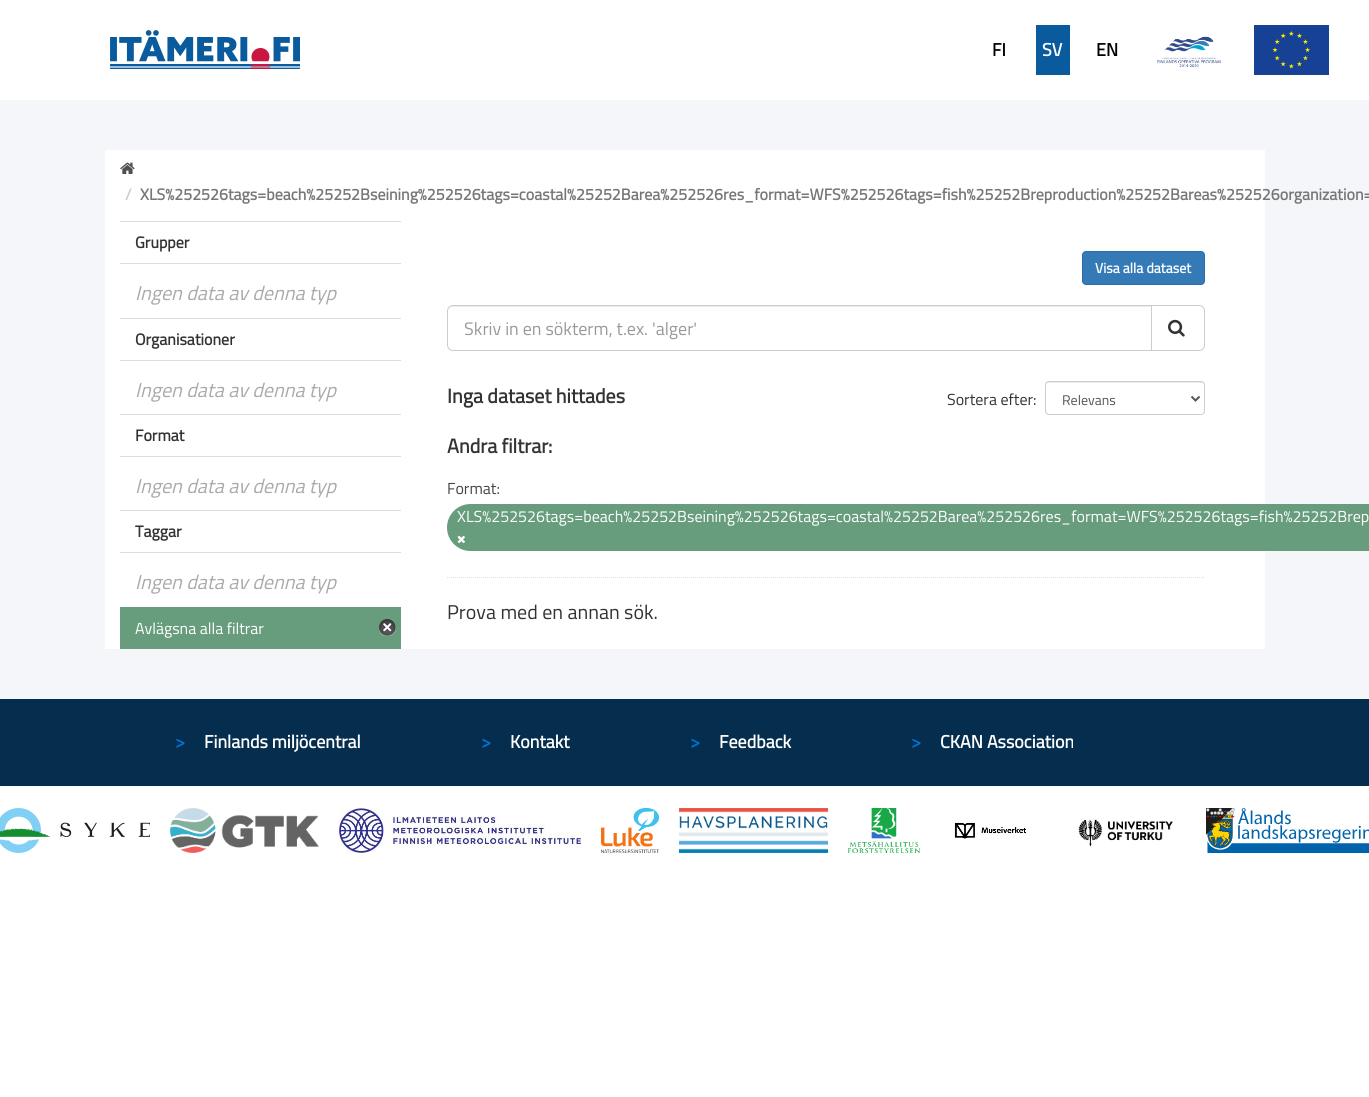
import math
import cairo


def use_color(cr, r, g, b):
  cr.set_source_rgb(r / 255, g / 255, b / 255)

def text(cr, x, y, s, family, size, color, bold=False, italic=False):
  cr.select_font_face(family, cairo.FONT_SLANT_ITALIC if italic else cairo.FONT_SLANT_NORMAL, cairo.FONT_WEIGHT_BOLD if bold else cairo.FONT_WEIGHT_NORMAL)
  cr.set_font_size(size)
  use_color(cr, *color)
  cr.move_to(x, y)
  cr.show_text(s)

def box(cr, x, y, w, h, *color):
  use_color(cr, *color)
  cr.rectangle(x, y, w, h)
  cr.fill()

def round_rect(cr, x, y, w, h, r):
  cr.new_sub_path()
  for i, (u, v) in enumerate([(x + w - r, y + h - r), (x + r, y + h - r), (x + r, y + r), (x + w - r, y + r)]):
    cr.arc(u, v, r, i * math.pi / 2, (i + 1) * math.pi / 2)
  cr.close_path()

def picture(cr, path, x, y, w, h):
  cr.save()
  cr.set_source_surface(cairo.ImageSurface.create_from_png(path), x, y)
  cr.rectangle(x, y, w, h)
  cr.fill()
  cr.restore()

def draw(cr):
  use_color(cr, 255, 255, 255)
  cr.paint()
  picture(cr, "img_01.png", 110, 30, 190, 39)
  box(cr, 1036, 25, 34, 50, 9, 91, 157)
  picture(cr, "img_02.png", 1157, 36, 64, 32)
  picture(cr, "img_03.png", 1254, 25, 75, 50)
  box(cr, 0, 100, 1369, 599, 245, 246, 250)
  box(cr, 105, 150, 1160, 499, 255, 255, 255)
  picture(cr, "img_04.png", 120, 162, 15, 12)
  box(cr, 120, 221, 281, 1, 221, 221, 221)
  box(cr, 120, 263, 281, 1, 221, 221, 221)
  box(cr, 120, 318, 281, 1, 221, 221, 221)
  box(cr, 120, 360, 281, 1, 221, 221, 221)
  box(cr, 120, 414, 281, 1, 221, 221, 221)
  box(cr, 120, 456, 281, 1, 221, 221, 221)
  box(cr, 120, 510, 281, 1, 221, 221, 221)
  box(cr, 120, 552, 281, 1, 221, 221, 221)
  box(cr, 120, 607, 281, 42, 103, 157, 125)
  picture(cr, "img_05.png", 379, 619, 17, 17)
  use_color(cr, 51, 122, 183)
  round_rect(cr, 1082.5, 251.5, 122, 33, 3.5)
  cr.fill_preserve()
  use_color(cr, 46, 109, 164)
  cr.set_line_width(1)
  cr.stroke()
  cr.new_path()
  cr.move_to(447, 577.5)
  cr.line_to(1205, 577.5)
  use_color(cr, 221, 221, 221)
  cr.set_dash([1, 1])
  cr.stroke()
  use_color(cr, 236, 236, 236)
  cr.new_path()
  cr.move_to(453, 307)
  cr.line_to(1151, 307)
  cr.line_to(1151, 306)
  cr.line_to(453, 306)
  cr.curve_to(450, 306, 448, 309, 448, 312)
  cr.curve_to(448, 309, 450, 307, 453, 307)
  cr.close_path()
  cr.fill()
  cr.new_path()
  cr.move_to(453, 305.5)
  cr.line_to(1151.5, 305.5)
  cr.line_to(1151.5, 350.5)
  cr.line_to(453, 350.5)
  cr.curve_to(450, 350.5, 447.5, 348, 447.5, 345)
  cr.line_to(447.5, 311)
  cr.curve_to(447.5, 308, 450, 305.5, 453, 305.5)
  cr.close_path()
  use_color(cr, 204, 204, 204)
  cr.set_dash([])
  cr.stroke()
  use_color(cr, 255, 255, 255)
  cr.new_path()
  cr.move_to(1151.5, 305.5)
  cr.line_to(1199, 305.5)
  cr.curve_to(1202, 305.5, 1204.5, 308, 1204.5, 311)
  cr.line_to(1204.5, 345)
  cr.curve_to(1204.5, 348, 1202, 350.5, 1199, 350.5)
  cr.line_to(1151.5, 350.5)
  cr.close_path()
  cr.fill_preserve()
  use_color(cr, 204, 204, 204)
  cr.stroke()
  picture(cr, "img_06.png", 1168, 319, 17, 18)
  use_color(cr, 236, 236, 236)
  cr.new_path()
  cr.move_to(1049, 383)
  cr.line_to(1201, 383)
  cr.curve_to(1203, 383, 1204, 384, 1204, 386)
  cr.curve_to(1204, 384, 1203, 382, 1201, 382)
  cr.line_to(1048, 382)
  cr.curve_to(1046, 382, 1046, 384, 1046, 386)
  cr.curve_to(1046, 384, 1047, 383, 1049, 383)
  cr.close_path()
  cr.fill()
  round_rect(cr, 1045.5, 381.5, 159, 33, 3.5)
  use_color(cr, 204, 204, 204)
  cr.stroke()
  cr.new_path()
  cr.move_to(1191.5, 396.5)
  cr.line_to(1195.5, 400.5)
  cr.line_to(1199.5, 396.5)
  use_color(cr, 85, 85, 85)
  cr.set_line_width(2)
  cr.stroke()
  use_color(cr, 103, 157, 125)
  round_rect(cr, 447, 504, 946, 47, 23.5)
  cr.fill()
  picture(cr, "img_07.png", 457, 535, 8, 9)
  box(cr, 0, 699, 1369, 87, 5, 45, 77)
  picture(cr, "img_08.png", 0, 808, 150, 45)
  picture(cr, "img_09.png", 170, 808, 149, 45)
  picture(cr, "img_10.png", 339, 808, 242, 45)
  picture(cr, "img_11.png", 601, 808, 58, 45)
  picture(cr, "img_12.png", 679, 808, 149, 45)
  picture(cr, "img_13.png", 848, 808, 72, 45)
  picture(cr, "img_14.png", 954, 822, 73, 17)
  picture(cr, "img_15.png", 1078, 819, 95, 28)
  picture(cr, "img_16.png", 1206, 808, 163, 45)
  text(cr, 992, 56, "FI", "Titillium Web", 18, (0, 0, 0), bold=True)
  text(cr, 1042, 56, "SV", "Titillium Web", 18, (255, 255, 255), bold=True)
  text(cr, 1096, 56, "EN", "Titillium Web", 18, (0, 0, 0), bold=True)
  text(cr, 125, 200, "/", "Titillium Web", 16, (204, 204, 204), bold=True)
  text(cr, 140, 200, "XLS%252526tags=beach%25252Bseining%252526tags=coastal%25252Barea%252526res_format=WFS%252526tags=fish%25252Breproduction%25252Bareas%252526organization=", "Titillium Web", 16, (119, 119, 119), bold=True)
  text(cr, 135, 248, "Grupper", "Titillium Web", 16, (51, 51, 51), bold=True)
  text(cr, 135, 300, "Ingen data av denna typ", "Titillium Web", 20, (170, 170, 170), italic=True)
  text(cr, 135, 345, "Organisationer", "Titillium Web", 16, (51, 51, 51), bold=True)
  text(cr, 135, 397, "Ingen data av denna typ", "Titillium Web", 20, (170, 170, 170), italic=True)
  text(cr, 135, 441, "Format", "Titillium Web", 16, (51, 51, 51), bold=True)
  text(cr, 135, 493, "Ingen data av denna typ", "Titillium Web", 20, (170, 170, 170), italic=True)
  text(cr, 135, 537, "Taggar", "Titillium Web", 16, (51, 51, 51), bold=True)
  text(cr, 135, 589, "Ingen data av denna typ", "Titillium Web", 20, (170, 170, 170), italic=True)
  text(cr, 135, 634, "Avlägsna alla filtrar", "Titillium Web", 16, (255, 255, 255))
  text(cr, 1095, 273, "Visa alla dataset", "Titillium Web", 14, (255, 255, 255), bold=True)
  text(cr, 464, 335, "Skriv in en sökterm, t.ex. 'alger'", "Titillium Web", 18, (153, 153, 153))
  text(cr, 447, 403, "Inga dataset hittades", "Titillium Web", 20, (51, 51, 51), bold=True)
  text(cr, 947, 405, "Sortera efter:", "Titillium Web", 16, (51, 51, 51))
  text(cr, 1062, 405, "Relevans", "Titillium Web", 14, (85, 85, 85))
  text(cr, 447, 453, "Andra filtrar:", "Titillium Web", 20, (51, 51, 51), bold=True)
  text(cr, 447, 494, "Format:", "Titillium Web", 16, (68, 68, 68))
  text(cr, 457, 522, "XLS%252526tags=beach%25252Bseining%252526tags=coastal%25252Barea%252526res_format=WFS%252526tags=fish%25252Brep", "Titillium Web", 16, (255, 255, 255))
  text(cr, 447, 619, "Prova med en annan sök.", "Titillium Web", 20, (51, 51, 51))
  text(cr, 175, 748, ">", "Titillium Web", 18, (0, 116, 208), bold=True)
  text(cr, 204, 748, "Finlands miljöcentral", "Titillium Web", 18, (255, 255, 255), bold=True)
  text(cr, 481, 748, ">", "Titillium Web", 18, (0, 116, 208), bold=True)
  text(cr, 510, 748, "Kontakt", "Titillium Web", 18, (255, 255, 255), bold=True)
  text(cr, 690, 748, ">", "Titillium Web", 18, (0, 116, 208), bold=True)
  text(cr, 719, 748, "Feedback", "Titillium Web", 18, (255, 255, 255), bold=True)
  text(cr, 911, 748, ">", "Titillium Web", 18, (0, 116, 208), bold=True)
  text(cr, 940, 748, "CKAN Association", "Titillium Web", 18, (255, 255, 255), bold=True)


surface = cairo.ImageSurface(cairo.FORMAT_RGB24, 1369, 1097)
cr = cairo.Context(surface)
options = cairo.FontOptions()
options.set_hint_metrics(cairo.HINT_METRICS_OFF)
options.set_hint_style(cairo.HINT_STYLE_NONE)
cr.set_font_options(options)
cr.set_miter_limit(4)
draw(cr)
surface.write_to_png("out.png")
